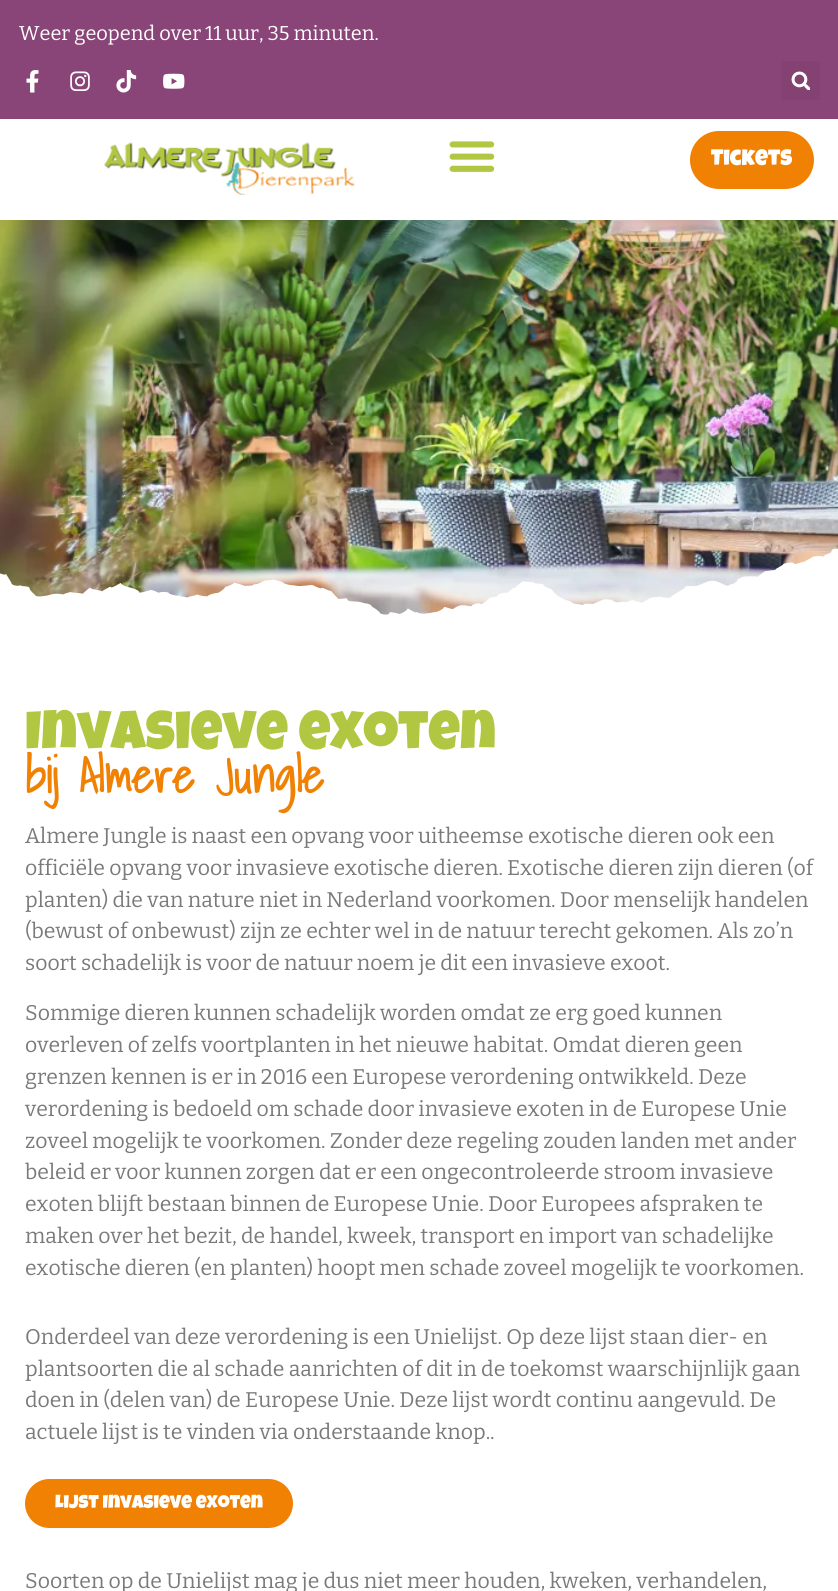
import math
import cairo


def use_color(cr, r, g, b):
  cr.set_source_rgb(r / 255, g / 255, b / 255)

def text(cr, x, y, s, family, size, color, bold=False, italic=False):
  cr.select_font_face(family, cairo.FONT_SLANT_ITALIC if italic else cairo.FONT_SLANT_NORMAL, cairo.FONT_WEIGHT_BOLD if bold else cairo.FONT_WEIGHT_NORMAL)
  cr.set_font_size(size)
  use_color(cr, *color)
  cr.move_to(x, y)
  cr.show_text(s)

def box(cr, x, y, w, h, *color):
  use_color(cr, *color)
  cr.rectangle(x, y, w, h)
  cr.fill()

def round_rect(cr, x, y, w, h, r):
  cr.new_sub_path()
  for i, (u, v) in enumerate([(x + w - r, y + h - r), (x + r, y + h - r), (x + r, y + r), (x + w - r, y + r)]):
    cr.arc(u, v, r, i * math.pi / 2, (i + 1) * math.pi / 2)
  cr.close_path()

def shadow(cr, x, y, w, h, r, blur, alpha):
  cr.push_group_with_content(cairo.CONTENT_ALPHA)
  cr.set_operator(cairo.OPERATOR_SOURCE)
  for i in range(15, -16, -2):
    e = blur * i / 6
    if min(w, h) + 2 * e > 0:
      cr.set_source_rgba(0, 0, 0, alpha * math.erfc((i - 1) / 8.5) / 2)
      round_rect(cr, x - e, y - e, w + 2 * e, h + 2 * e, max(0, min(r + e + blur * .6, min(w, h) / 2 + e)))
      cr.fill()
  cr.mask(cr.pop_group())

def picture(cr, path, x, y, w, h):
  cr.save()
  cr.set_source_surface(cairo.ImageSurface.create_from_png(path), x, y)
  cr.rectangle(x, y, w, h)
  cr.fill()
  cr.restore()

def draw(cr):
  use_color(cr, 255, 255, 255)
  cr.paint()
  picture(cr, "img_08.png", 0, 220, 838, 395)
  use_color(cr, 0, 0, 0)
  shadow(cr, 0, 6, 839, 220, 0, 19, 0.1)
  box(cr, 0, 0, 838, 119, 138, 69, 120)
  picture(cr, "img_01.png", 26, 70, 13, 23)
  picture(cr, "img_02.png", 70, 71, 20, 20)
  picture(cr, "img_03.png", 116, 70, 21, 23)
  picture(cr, "img_04.png", 163, 73, 22, 16)
  box(cr, 781, 61, 39, 39, 131, 66, 114)
  picture(cr, "img_05.png", 791, 71, 19, 19)
  box(cr, 0, 119, 838, 101, 255, 255, 255)
  picture(cr, "img_06.png", 104, 142, 251, 53)
  picture(cr, "img_07.png", 449, 141, 46, 31)
  use_color(cr, 241, 129, 3)
  round_rect(cr, 690, 131, 124, 58, 29)
  cr.fill()
  picture(cr, "img_09.png", 0, 548, 838, 84)
  round_rect(cr, 25, 1479, 268, 49, 24.5)
  cr.fill()
  text(cr, 19, 40, "Weer geopend over 11 uur, 35 minuten.", "Bitter", 20, (255, 255, 255))
  text(cr, 711, 165, "Tickets", "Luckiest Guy", 22.5, (255, 255, 255))
  text(cr, 25, 749, "Invasieve exoten", "Luckiest Guy", 55, (177, 199, 65))
  text(cr, 25, 793, "bij Almere Jungle", "Shadows Into Light", 47.5, (241, 129, 3), bold=True)
  text(cr, 25, 843, "Almere Jungle is naast een opvang voor uitheemse exotische dieren ook een", "Bitter", 21.25, (122, 122, 122))
  text(cr, 25, 875, "officiële opvang voor invasieve exotische dieren. Exotische dieren zijn dieren (of", "Bitter", 21.25, (122, 122, 122))
  text(cr, 25, 907, "planten) die van nature niet in Nederland voorkomen. Door menselijk handelen", "Bitter", 21.25, (122, 122, 122))
  text(cr, 25, 938, "(bewust of onbewust) zijn ze echter wel in de natuur terecht gekomen. Als zo’n", "Bitter", 21.25, (122, 122, 122))
  text(cr, 25, 970, "soort schadelijk is voor de natuur noem je dit een invasieve exoot.", "Bitter", 21.25, (122, 122, 122))
  text(cr, 25, 1020, "Sommige dieren kunnen schadelijk worden omdat ze erg goed kunnen", "Bitter", 21.25, (122, 122, 122))
  text(cr, 25, 1052, "overleven of zelfs voortplanten in het nieuwe habitat. Omdat dieren geen", "Bitter", 21.25, (122, 122, 122))
  text(cr, 25, 1084, "grenzen kennen is er in 2016 een Europese verordening ontwikkeld. Deze", "Bitter", 21.25, (122, 122, 122))
  text(cr, 25, 1116, "verordening is bedoeld om schade door invasieve exoten in de Europese Unie", "Bitter", 21.25, (122, 122, 122))
  text(cr, 25, 1148, "zoveel mogelijk te voorkomen. Zonder deze regeling zouden landen met ander", "Bitter", 21.25, (122, 122, 122))
  text(cr, 25, 1179, "beleid er voor kunnen zorgen dat er een ongecontroleerde stroom invasieve", "Bitter", 21.25, (122, 122, 122))
  text(cr, 25, 1211, "exoten blijft bestaan binnen de Europese Unie. Door Europees afspraken te", "Bitter", 21.25, (122, 122, 122))
  text(cr, 25, 1243, "maken over het bezit, de handel, kweek, transport en import van schadelijke", "Bitter", 21.25, (122, 122, 122))
  text(cr, 25, 1275, "exotische dieren (en planten) hoopt men schade zoveel mogelijk te voorkomen.", "Bitter", 21.25, (122, 122, 122))
  text(cr, 25, 1344, "Onderdeel van deze verordening is een Unielijst. Op deze lijst staan dier- en", "Bitter", 21.25, (122, 122, 122))
  text(cr, 25, 1376, "plantsoorten die al schade aanrichten of dit in de toekomst waarschijnlijk gaan", "Bitter", 21.25, (122, 122, 122))
  text(cr, 25, 1407, "doen in (delen van) de Europese Unie. Deze lijst wordt continu aangevuld. De", "Bitter", 21.25, (122, 122, 122))
  text(cr, 25, 1439, "actuele lijst is te vinden via onderstaande knop..", "Bitter", 21.25, (122, 122, 122))
  text(cr, 55, 1508, "Lijst Invasieve exoten", "Luckiest Guy", 18.75, (255, 255, 255))
  text(cr, 25, 1588, "Soorten op de Unielijst mag je dus niet meer houden, kweken, verhandelen,", "Bitter", 21.25, (122, 122, 122))


surface = cairo.ImageSurface(cairo.FORMAT_RGB24, 838, 1591)
cr = cairo.Context(surface)
options = cairo.FontOptions()
options.set_hint_metrics(cairo.HINT_METRICS_OFF)
options.set_hint_style(cairo.HINT_STYLE_NONE)
cr.set_font_options(options)
cr.set_miter_limit(4)
draw(cr)
surface.write_to_png("out.png")
